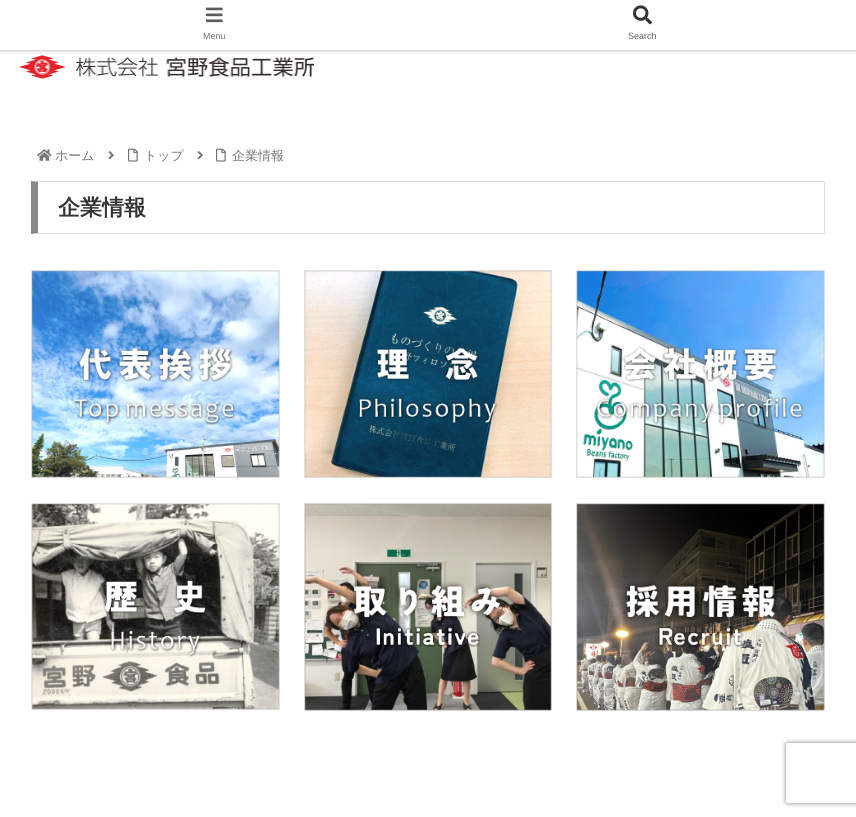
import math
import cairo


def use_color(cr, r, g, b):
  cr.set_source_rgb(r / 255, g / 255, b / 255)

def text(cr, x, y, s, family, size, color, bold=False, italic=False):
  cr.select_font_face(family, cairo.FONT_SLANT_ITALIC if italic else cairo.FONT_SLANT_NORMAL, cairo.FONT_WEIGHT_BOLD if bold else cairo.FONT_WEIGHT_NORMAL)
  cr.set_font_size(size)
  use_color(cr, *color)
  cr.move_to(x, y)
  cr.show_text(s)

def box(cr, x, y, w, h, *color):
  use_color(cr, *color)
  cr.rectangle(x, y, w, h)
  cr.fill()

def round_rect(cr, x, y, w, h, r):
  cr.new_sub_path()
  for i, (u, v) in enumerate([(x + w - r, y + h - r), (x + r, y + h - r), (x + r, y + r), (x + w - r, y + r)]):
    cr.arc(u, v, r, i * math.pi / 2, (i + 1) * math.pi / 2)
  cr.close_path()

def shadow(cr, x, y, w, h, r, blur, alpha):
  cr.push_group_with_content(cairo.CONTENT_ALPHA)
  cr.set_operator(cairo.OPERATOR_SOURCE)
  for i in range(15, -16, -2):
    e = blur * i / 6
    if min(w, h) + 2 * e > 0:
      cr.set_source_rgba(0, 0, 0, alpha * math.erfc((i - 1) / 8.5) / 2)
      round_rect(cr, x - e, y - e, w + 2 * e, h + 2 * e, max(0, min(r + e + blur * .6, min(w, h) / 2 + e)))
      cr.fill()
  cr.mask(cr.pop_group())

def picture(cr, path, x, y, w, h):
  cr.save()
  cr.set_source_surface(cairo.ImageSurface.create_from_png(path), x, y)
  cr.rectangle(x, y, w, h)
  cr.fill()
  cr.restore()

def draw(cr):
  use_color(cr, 255, 255, 255)
  cr.paint()
  picture(cr, "img_03.png", 19, 55, 295, 24)
  cr.save()
  cr.rectangle(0, 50, 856, 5)
  cr.clip()
  use_color(cr, 169, 169, 169)
  shadow(cr, 0, 0, 856, 50, 0, 2.5, 1)
  cr.restore()
  picture(cr, "img_01.png", 206, 7, 17, 16)
  picture(cr, "img_02.png", 633, 5, 19, 20)
  picture(cr, "img_04.png", 37, 149, 15, 12)
  picture(cr, "img_05.png", 108, 151, 6, 9)
  picture(cr, "img_06.png", 128, 148, 10, 14)
  picture(cr, "img_05.png", 197, 151, 6, 9)
  picture(cr, "img_06.png", 216, 148, 10, 14)
  use_color(cr, 221, 221, 221)
  cr.new_path()
  cr.move_to(31, 181)
  cr.line_to(825, 181)
  cr.line_to(824, 182)
  cr.line_to(38, 182)
  cr.close_path()
  cr.fill()
  box(cr, 824, 181, 1, 53, 221, 221, 221)
  cr.new_path()
  cr.move_to(825, 234)
  cr.line_to(31, 234)
  cr.line_to(38, 233)
  cr.line_to(824, 233)
  cr.close_path()
  cr.fill()
  use_color(cr, 136, 136, 136)
  cr.new_path()
  cr.move_to(31, 234)
  cr.line_to(31, 181)
  cr.line_to(38, 182)
  cr.line_to(38, 233)
  cr.close_path()
  cr.fill()
  picture(cr, "img_07.png", 31, 270, 249, 208)
  picture(cr, "img_08.png", 304, 270, 248, 208)
  picture(cr, "img_09.png", 576, 270, 249, 208)
  picture(cr, "img_10.png", 31, 503, 249, 207)
  picture(cr, "img_11.png", 304, 503, 248, 208)
  picture(cr, "img_12.png", 576, 503, 249, 208)
  cr.save()
  cr.set_fill_rule(cairo.FILL_RULE_EVEN_ODD)
  cr.new_path()
  cr.move_to(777, 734)
  cr.line_to(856, 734)
  cr.line_to(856, 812)
  cr.line_to(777, 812)
  cr.close_path()
  cr.move_to(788, 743)
  cr.line_to(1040, 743)
  cr.curve_to(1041, 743, 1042, 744, 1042, 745)
  cr.line_to(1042, 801)
  cr.curve_to(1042, 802, 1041, 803, 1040, 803)
  cr.line_to(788, 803)
  cr.curve_to(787, 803, 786, 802, 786, 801)
  cr.line_to(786, 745)
  cr.curve_to(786, 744, 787, 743, 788, 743)
  cr.close_path()
  cr.clip()
  use_color(cr, 128, 128, 128)
  shadow(cr, 786, 743, 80, 60, 2, 2.5, 1)
  cr.restore()
  text(cr, 203, 39, "Menu", "Liberation Sans", 9, (119, 119, 119))
  text(cr, 628, 39, "Search", "Liberation Sans", 9, (92, 92, 92))
  text(cr, 55, 160, "ホーム", "WenQuanYi Zen Hei Medium", 13, (119, 119, 119))
  text(cr, 144, 160, "トップ", "WenQuanYi Zen Hei Medium", 13, (119, 119, 119))
  text(cr, 232, 160, "企業情報", "WenQuanYi Zen Hei Medium", 13, (119, 119, 119))
  text(cr, 58, 215, "企業情報", "WenQuanYi Zen Hei", 22, (51, 51, 51), bold=True)


surface = cairo.ImageSurface(cairo.FORMAT_RGB24, 856, 817)
cr = cairo.Context(surface)
options = cairo.FontOptions()
options.set_hint_metrics(cairo.HINT_METRICS_OFF)
options.set_hint_style(cairo.HINT_STYLE_NONE)
cr.set_font_options(options)
cr.set_miter_limit(4)
draw(cr)
surface.write_to_png("out.png")
